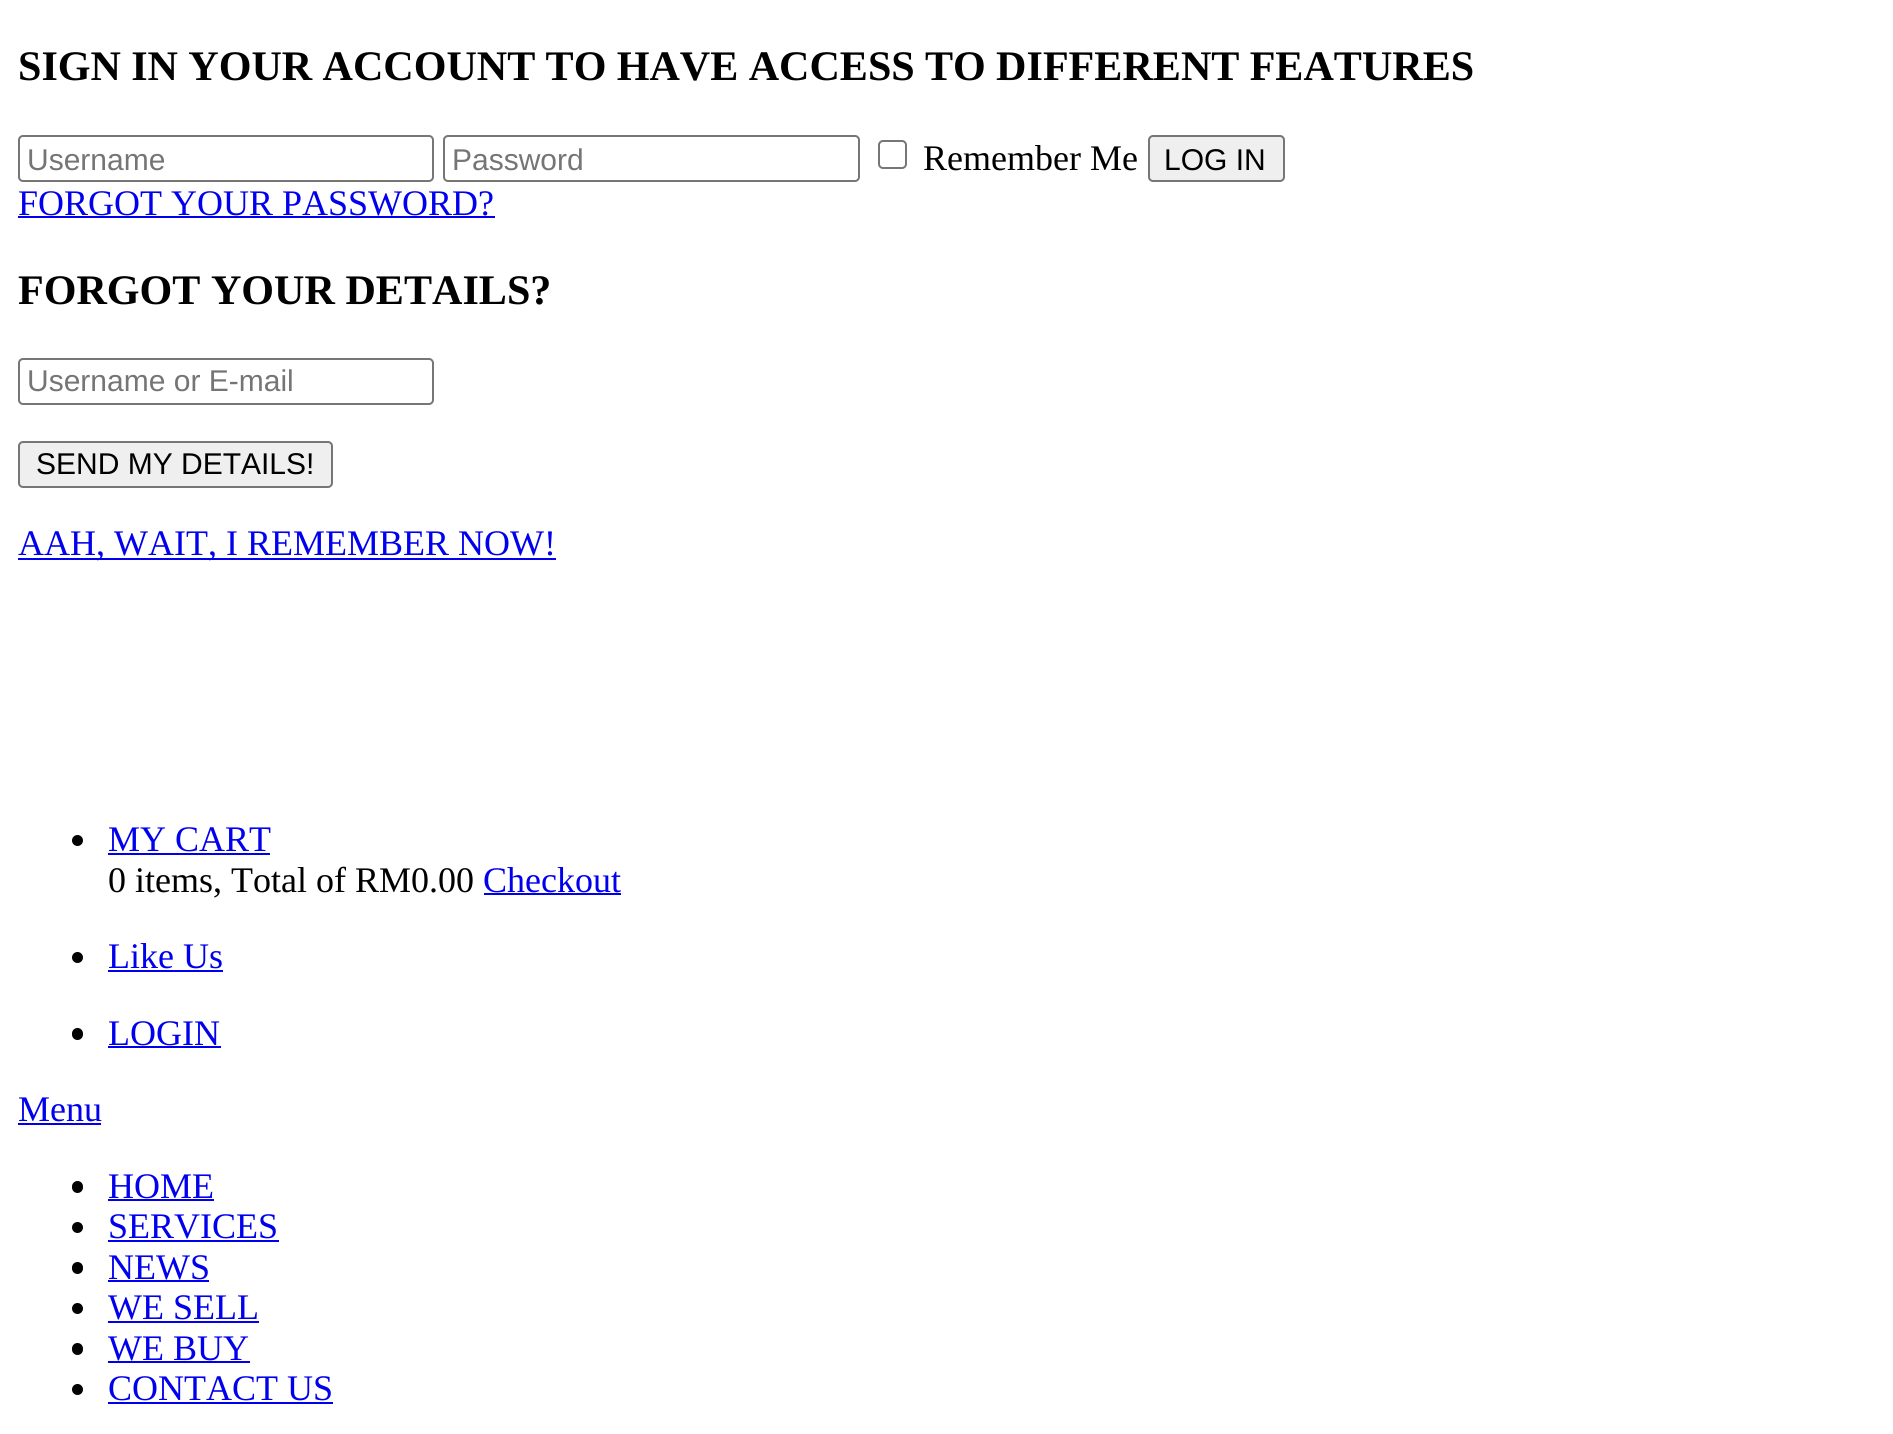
import math
import cairo


def use_color(cr, r, g, b):
  cr.set_source_rgb(r / 255, g / 255, b / 255)

def text(cr, x, y, s, family, size, color, bold=False, italic=False):
  cr.select_font_face(family, cairo.FONT_SLANT_ITALIC if italic else cairo.FONT_SLANT_NORMAL, cairo.FONT_WEIGHT_BOLD if bold else cairo.FONT_WEIGHT_NORMAL)
  cr.set_font_size(size)
  use_color(cr, *color)
  cr.move_to(x, y)
  cr.show_text(s)

def spaced_text(cr, x, y, s, letter, word):
  cr.move_to(x, y)
  for ch in s:
    cr.show_text(ch)
    cr.rel_move_to(letter + word * (ch == ' '), 0)

def box(cr, x, y, w, h, *color):
  use_color(cr, *color)
  cr.rectangle(x, y, w, h)
  cr.fill()

def round_rect(cr, x, y, w, h, r):
  cr.new_sub_path()
  for i, (u, v) in enumerate([(x + w - r, y + h - r), (x + r, y + h - r), (x + r, y + r), (x + w - r, y + r)]):
    cr.arc(u, v, r, i * math.pi / 2, (i + 1) * math.pi / 2)
  cr.close_path()

def draw(cr):
  use_color(cr, 255, 255, 255)
  cr.paint()
  round_rect(cr, 19, 136, 414, 45, 4)
  use_color(cr, 118, 118, 118)
  cr.stroke()
  round_rect(cr, 444, 136, 415, 45, 4)
  cr.stroke()
  round_rect(cr, 879, 141, 27, 27, 4)
  cr.stroke()
  use_color(cr, 239, 239, 239)
  round_rect(cr, 1149, 136, 135, 45, 4)
  cr.fill_preserve()
  use_color(cr, 118, 118, 118)
  cr.stroke()
  box(cr, 18, 216, 477, 2, 0, 0, 238)
  round_rect(cr, 19, 359, 414, 45, 4)
  use_color(cr, 118, 118, 118)
  cr.stroke()
  use_color(cr, 239, 239, 239)
  round_rect(cr, 19, 442, 313, 45, 4)
  cr.fill_preserve()
  use_color(cr, 118, 118, 118)
  cr.stroke()
  box(cr, 18, 558, 538, 2, 0, 0, 238)
  use_color(cr, 0, 0, 0)
  cr.arc(77.5, 840.5, 5.5, 0, 2 * math.pi)
  cr.fill()
  box(cr, 108, 853, 162, 2, 0, 0, 238)
  box(cr, 484, 893, 137, 2, 0, 0, 238)
  use_color(cr, 0, 0, 0)
  cr.arc(77.5, 957.5, 5.5, 0, 2 * math.pi)
  cr.fill()
  box(cr, 108, 970, 115, 2, 0, 0, 238)
  use_color(cr, 0, 0, 0)
  round_rect(cr, 72, 1028, 11, 12, 5.5)
  cr.fill()
  box(cr, 108, 1046, 113, 2, 0, 0, 238)
  box(cr, 18, 1123, 83, 2, 0, 0, 238)
  use_color(cr, 0, 0, 0)
  round_rect(cr, 72, 1181, 11, 12, 5.5)
  cr.fill()
  box(cr, 108, 1199, 106, 2, 0, 0, 238)
  use_color(cr, 0, 0, 0)
  cr.arc(77.5, 1227.5, 5.5, 0, 2 * math.pi)
  cr.fill()
  box(cr, 108, 1240, 171, 2, 0, 0, 238)
  use_color(cr, 0, 0, 0)
  round_rect(cr, 72, 1262, 11, 12, 5.5)
  cr.fill()
  box(cr, 108, 1280, 101, 2, 0, 0, 238)
  use_color(cr, 0, 0, 0)
  cr.arc(77.5, 1308.5, 5.5, 0, 2 * math.pi)
  cr.fill()
  box(cr, 108, 1321, 151, 2, 0, 0, 238)
  use_color(cr, 0, 0, 0)
  round_rect(cr, 72, 1343, 11, 12, 5.5)
  cr.fill()
  box(cr, 108, 1361, 142, 2, 0, 0, 238)
  use_color(cr, 0, 0, 0)
  cr.arc(77.5, 1389.5, 5.5, 0, 2 * math.pi)
  cr.fill()
  box(cr, 108, 1402, 225, 2, 0, 0, 238)
  cr.select_font_face("Liberation Serif", cairo.FONT_SLANT_NORMAL, cairo.FONT_WEIGHT_BOLD)
  cr.set_font_size(42.1)
  use_color(cr, 0, 0, 0)
  spaced_text(cr, 18, 80, "SIGN IN YOUR ACCOUNT TO HAVE ACCESS TO DIFFERENT FEATURES", 0, -0.25)
  text(cr, 27, 170, "Username", "Liberation Sans", 30, (117, 117, 117))
  text(cr, 452, 170, "Password", "Liberation Sans", 30, (117, 117, 117))
  text(cr, 923, 170, "Remember Me", "Liberation Serif", 36, (0, 0, 0))
  text(cr, 1164, 170, "LOG IN", "Liberation Sans", 30, (0, 0, 0))
  text(cr, 18, 215, "FORGOT YOUR PASSWORD?", "Liberation Serif", 36, (0, 0, 238))
  text(cr, 18, 304, "FORGOT YOUR DETAILS?", "Liberation Serif", 42.1, (0, 0, 0), bold=True)
  text(cr, 27, 391, "Username or E-mail", "Liberation Sans", 30, (117, 117, 117))
  text(cr, 36, 474, "SEND MY DETAILS!", "Liberation Sans", 30, (0, 0, 0))
  text(cr, 18, 555, "AAH, WAIT, I REMEMBER NOW!", "Liberation Serif", 36, (0, 0, 238))
  text(cr, 108, 851, "MY CART", "Liberation Serif", 36, (0, 0, 238))
  text(cr, 108, 892, "0 items, Total of RM0.00", "Liberation Serif", 36, (0, 0, 0))
  text(cr, 483, 892, "Checkout", "Liberation Serif", 36, (0, 0, 238))
  text(cr, 108, 968, "Like Us", "Liberation Serif", 36, (0, 0, 238))
  text(cr, 108, 1045, "LOGIN", "Liberation Serif", 36, (0, 0, 238))
  text(cr, 18, 1121, "Menu", "Liberation Serif", 36, (0, 0, 238))
  text(cr, 108, 1198, "HOME", "Liberation Serif", 36, (0, 0, 238))
  text(cr, 108, 1238, "SERVICES", "Liberation Serif", 36, (0, 0, 238))
  text(cr, 108, 1279, "NEWS", "Liberation Serif", 36, (0, 0, 238))
  text(cr, 108, 1319, "WE SELL", "Liberation Serif", 36, (0, 0, 238))
  text(cr, 108, 1360, "WE BUY", "Liberation Serif", 36, (0, 0, 238))
  text(cr, 108, 1400, "CONTACT US", "Liberation Serif", 36, (0, 0, 238))


surface = cairo.ImageSurface(cairo.FORMAT_RGB24, 1893, 1434)
cr = cairo.Context(surface)
options = cairo.FontOptions()
options.set_hint_metrics(cairo.HINT_METRICS_OFF)
options.set_hint_style(cairo.HINT_STYLE_NONE)
cr.set_font_options(options)
cr.set_miter_limit(4)
draw(cr)
surface.write_to_png("out.png")
